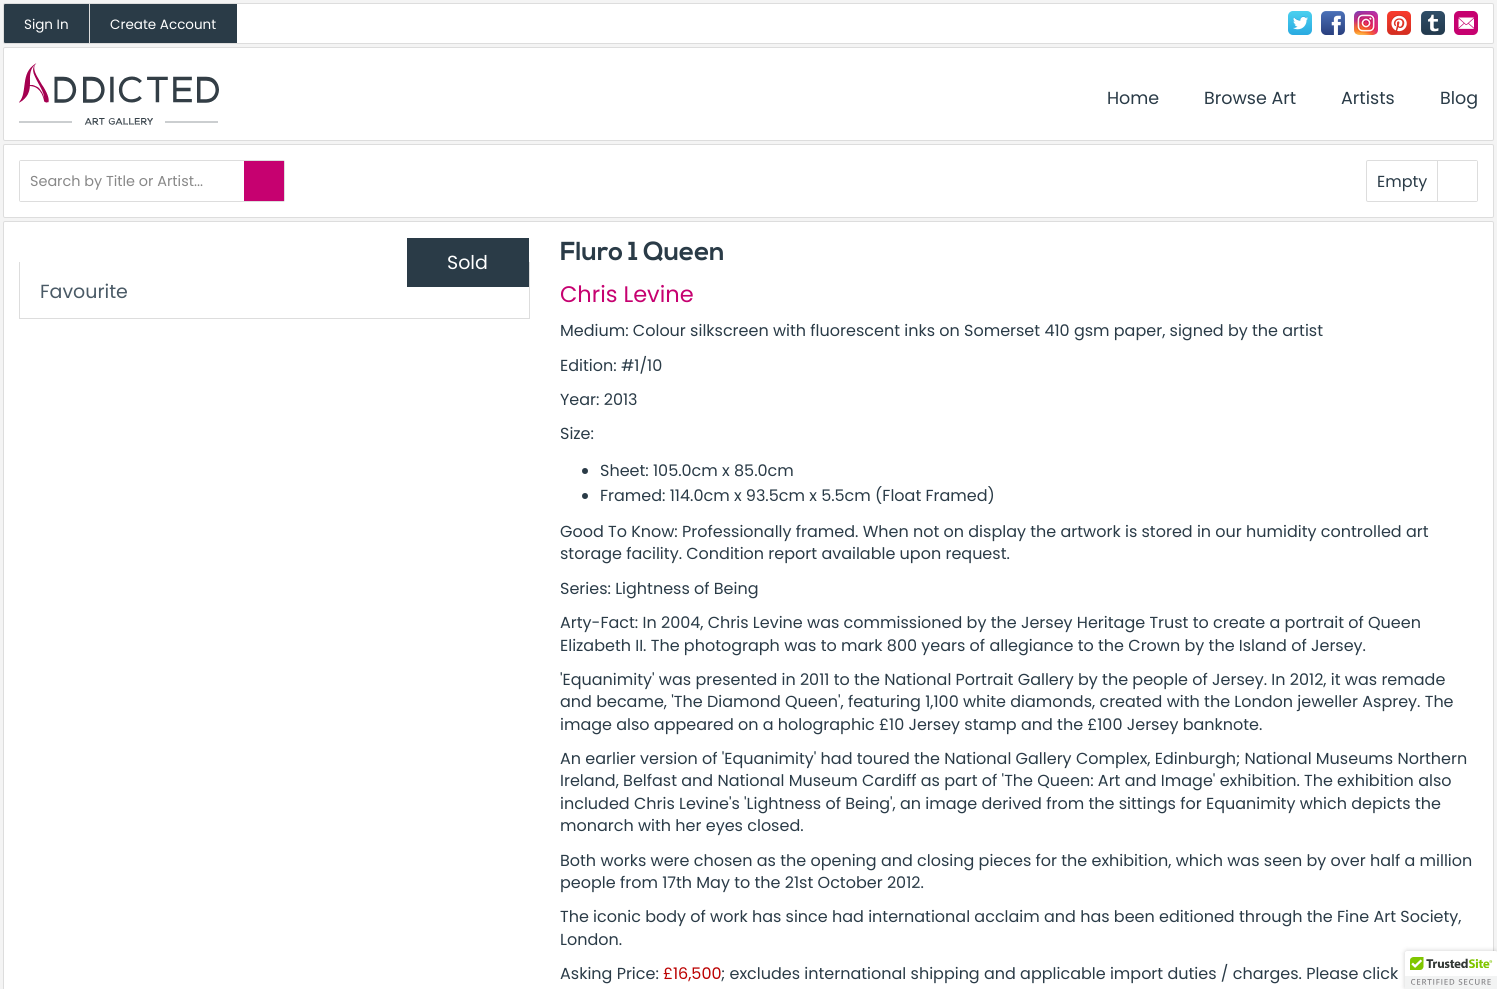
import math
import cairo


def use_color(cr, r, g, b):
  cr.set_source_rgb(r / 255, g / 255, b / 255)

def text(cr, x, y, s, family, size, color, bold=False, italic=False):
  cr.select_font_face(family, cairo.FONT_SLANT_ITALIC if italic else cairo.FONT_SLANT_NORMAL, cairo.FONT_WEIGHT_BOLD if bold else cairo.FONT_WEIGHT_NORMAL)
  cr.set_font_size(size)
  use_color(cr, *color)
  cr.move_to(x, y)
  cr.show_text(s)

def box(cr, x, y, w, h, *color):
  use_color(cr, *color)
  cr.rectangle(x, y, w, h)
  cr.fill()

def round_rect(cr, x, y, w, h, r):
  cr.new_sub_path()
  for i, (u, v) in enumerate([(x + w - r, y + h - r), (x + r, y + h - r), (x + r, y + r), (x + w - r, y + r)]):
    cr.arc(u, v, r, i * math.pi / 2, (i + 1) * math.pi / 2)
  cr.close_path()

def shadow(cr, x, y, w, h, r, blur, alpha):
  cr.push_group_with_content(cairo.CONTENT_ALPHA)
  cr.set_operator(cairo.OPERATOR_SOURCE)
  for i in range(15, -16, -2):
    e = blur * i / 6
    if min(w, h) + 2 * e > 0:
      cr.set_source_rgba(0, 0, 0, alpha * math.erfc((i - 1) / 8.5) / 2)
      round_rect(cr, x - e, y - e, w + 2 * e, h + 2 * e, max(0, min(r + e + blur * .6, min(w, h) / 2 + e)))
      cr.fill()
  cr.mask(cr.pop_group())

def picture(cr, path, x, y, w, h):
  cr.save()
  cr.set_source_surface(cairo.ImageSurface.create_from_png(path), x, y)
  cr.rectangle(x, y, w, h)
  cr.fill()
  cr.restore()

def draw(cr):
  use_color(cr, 244, 244, 244)
  cr.paint()
  use_color(cr, 255, 255, 255)
  round_rect(cr, 3.5, 3.5, 1490, 40, 1.5)
  cr.fill_preserve()
  use_color(cr, 221, 221, 221)
  cr.set_line_width(1)
  cr.stroke()
  use_color(cr, 42, 59, 71)
  cr.new_path()
  cr.move_to(5, 4)
  cr.line_to(89, 4)
  cr.line_to(89, 43)
  cr.line_to(5, 43)
  cr.curve_to(4.5, 43, 4, 42.5, 4, 42)
  cr.line_to(4, 5)
  cr.curve_to(4, 4.5, 4.5, 4, 5, 4)
  cr.close_path()
  cr.fill()
  box(cr, 90, 4, 147, 39, 42, 59, 71)
  box(cr, 89, 4, 1, 39, 221, 221, 221)
  picture(cr, "img_01.png", 1288, 11, 24, 24)
  picture(cr, "img_02.png", 1321, 11, 24, 24)
  picture(cr, "img_03.png", 1354, 11, 24, 24)
  picture(cr, "img_04.png", 1387, 11, 24, 24)
  picture(cr, "img_05.png", 1421, 11, 24, 24)
  picture(cr, "img_06.png", 1454, 11, 24, 24)
  use_color(cr, 255, 255, 255)
  round_rect(cr, 3.5, 47.5, 1490, 93, 1.5)
  cr.fill_preserve()
  use_color(cr, 221, 221, 221)
  cr.stroke()
  picture(cr, "img_07.png", 19, 63, 200, 62)
  use_color(cr, 255, 255, 255)
  round_rect(cr, 3.5, 144.5, 1490, 73, 1.5)
  cr.fill_preserve()
  use_color(cr, 221, 221, 221)
  cr.stroke()
  round_rect(cr, 19.5, 160.5, 265, 41, 1.5)
  cr.stroke()
  box(cr, 20, 161, 1, 40, 255, 255, 255)
  box(cr, 244, 161, 40, 40, 198, 1, 112)
  round_rect(cr, 1366.5, 160.5, 111, 41, 1.5)
  use_color(cr, 221, 221, 221)
  cr.stroke()
  box(cr, 1476, 161, 1, 40, 255, 255, 255)
  box(cr, 1437, 161, 1, 40, 221, 221, 221)
  use_color(cr, 255, 255, 255)
  round_rect(cr, 3.5, 221.5, 1490, 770, 1.5)
  cr.fill_preserve()
  use_color(cr, 221, 221, 221)
  cr.stroke()
  box(cr, 407, 238, 122, 49, 42, 59, 71)
  box(cr, 529, 262, 1, 57, 221, 221, 221)
  box(cr, 19, 318, 511, 1, 221, 221, 221)
  box(cr, 19, 262, 1, 57, 221, 221, 221)
  use_color(cr, 42, 59, 71)
  cr.arc(585, 471, 3, 0, 2 * math.pi)
  cr.fill()
  cr.arc(585, 496, 3, 0, 2 * math.pi)
  cr.fill()
  use_color(cr, 0, 0, 0)
  shadow(cr, 1405, 951, 92, 38, 2, 2.5, 0.2)
  use_color(cr, 255, 255, 255)
  cr.new_path()
  cr.move_to(1407, 951)
  cr.line_to(1497, 951)
  cr.line_to(1497, 989)
  cr.line_to(1405, 989)
  cr.line_to(1405, 953)
  cr.curve_to(1405, 952, 1406, 951, 1407, 951)
  cr.close_path()
  cr.fill()
  picture(cr, "img_08.png", 1405, 951, 92, 38)
  text(cr, 24, 29, "Sign In", "Poppins", 13.5, (255, 255, 255))
  text(cr, 110, 29, "Create Account", "Poppins", 13.5, (255, 255, 255))
  text(cr, 1107, 104, "Home", "Poppins", 17.5, (42, 59, 71))
  text(cr, 1204, 104, "Browse Art", "Poppins", 17.5, (42, 59, 71))
  text(cr, 1341, 104, "Artists", "Poppins", 17.5, (42, 59, 71))
  text(cr, 1440, 104, "Blog", "Poppins", 17.5, (42, 59, 71))
  text(cr, 30, 186, "Search by Title or Artist...", "Poppins", 14.4, (136, 136, 136))
  text(cr, 1377, 187, "Empty", "Poppins", 16, (42, 59, 71))
  text(cr, 447, 269, "Sold", "Poppins", 19, (255, 255, 255))
  text(cr, 40, 298, "Favourite", "Poppins", 19, (74, 90, 102))
  text(cr, 560, 260, "Fluro 1 Queen", "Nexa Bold", 26, (42, 59, 71), bold=True)
  text(cr, 560, 302, "Chris Levine", "Poppins", 22.5, (198, 1, 112))
  text(cr, 560, 336, "Medium: Colour silkscreen with fluorescent inks on Somerset 410 gsm paper, signed by the artist", "Poppins", 16, (42, 59, 71))
  text(cr, 560, 371, "Edition: #1/10", "Poppins", 16, (42, 59, 71))
  text(cr, 560, 405, "Year: 2013", "Poppins", 16, (42, 59, 71))
  text(cr, 560, 439, "Size:", "Poppins", 16, (42, 59, 71))
  text(cr, 600, 476, "Sheet: 105.0cm x 85.0cm", "Poppins", 16, (42, 59, 71))
  text(cr, 600, 501, "Framed: 114.0cm x 93.5cm x 5.5cm (Float Framed)", "Poppins", 16, (42, 59, 71))
  text(cr, 560, 537, "Good To Know: Professionally framed. When not on display the artwork is stored in our humidity controlled art", "Poppins", 16, (42, 59, 71))
  text(cr, 560, 559, "storage facility. Condition report available upon request.", "Poppins", 16, (42, 59, 71))
  text(cr, 560, 594, "Series: Lightness of Being", "Poppins", 16, (42, 59, 71))
  text(cr, 560, 628, "Arty-Fact: In 2004, Chris Levine was commissioned by the Jersey Heritage Trust to create a portrait of Queen", "Poppins", 16, (42, 59, 71))
  text(cr, 560, 651, "Elizabeth II. The photograph was to mark 800 years of allegiance to the Crown by the Island of Jersey.", "Poppins", 16, (42, 59, 71))
  text(cr, 560, 685, "'Equanimity' was presented in 2011 to the National Portrait Gallery by the people of Jersey. In 2012, it was remade", "Poppins", 16, (42, 59, 71))
  text(cr, 560, 707, "and became, 'The Diamond Queen', featuring 1,100 white diamonds, created with the London jeweller Asprey. The", "Poppins", 16, (42, 59, 71))
  text(cr, 560, 730, "image also appeared on a holographic £10 Jersey stamp and the £100 Jersey banknote.", "Poppins", 16, (42, 59, 71))
  text(cr, 560, 764, "An earlier version of 'Equanimity' had toured the National Gallery Complex, Edinburgh; National Museums Northern", "Poppins", 16, (42, 59, 71))
  text(cr, 560, 786, "Ireland, Belfast and National Museum Cardiff as part of 'The Queen: Art and Image' exhibition. The exhibition also", "Poppins", 16, (42, 59, 71))
  text(cr, 560, 809, "included Chris Levine's 'Lightness of Being', an image derived from the sittings for Equanimity which depicts the", "Poppins", 16, (42, 59, 71))
  text(cr, 560, 831, "monarch with her eyes closed.", "Poppins", 16, (42, 59, 71))
  text(cr, 560, 866, "Both works were chosen as the opening and closing pieces for the exhibition, which was seen by over half a million", "Poppins", 16, (42, 59, 71))
  text(cr, 560, 888, "people from 17th May to the 21st October 2012.", "Poppins", 16, (42, 59, 71))
  text(cr, 560, 922, "The iconic body of work has since had international acclaim and has been editioned through the Fine Art Society,", "Poppins", 16, (42, 59, 71))
  text(cr, 560, 945, "London.", "Poppins", 16, (42, 59, 71))
  text(cr, 560, 979, "Asking Price:", "Poppins", 16, (42, 59, 71))
  text(cr, 663, 979, "£16,500", "Poppins", 16, (187, 0, 0))
  text(cr, 721, 979, "; excludes international shipping and applicable import duties / charges. Please click", "Poppins", 16, (42, 59, 71))


surface = cairo.ImageSurface(cairo.FORMAT_RGB24, 1497, 989)
cr = cairo.Context(surface)
options = cairo.FontOptions()
options.set_hint_metrics(cairo.HINT_METRICS_OFF)
options.set_hint_style(cairo.HINT_STYLE_NONE)
cr.set_font_options(options)
cr.set_miter_limit(4)
draw(cr)
surface.write_to_png("out.png")
